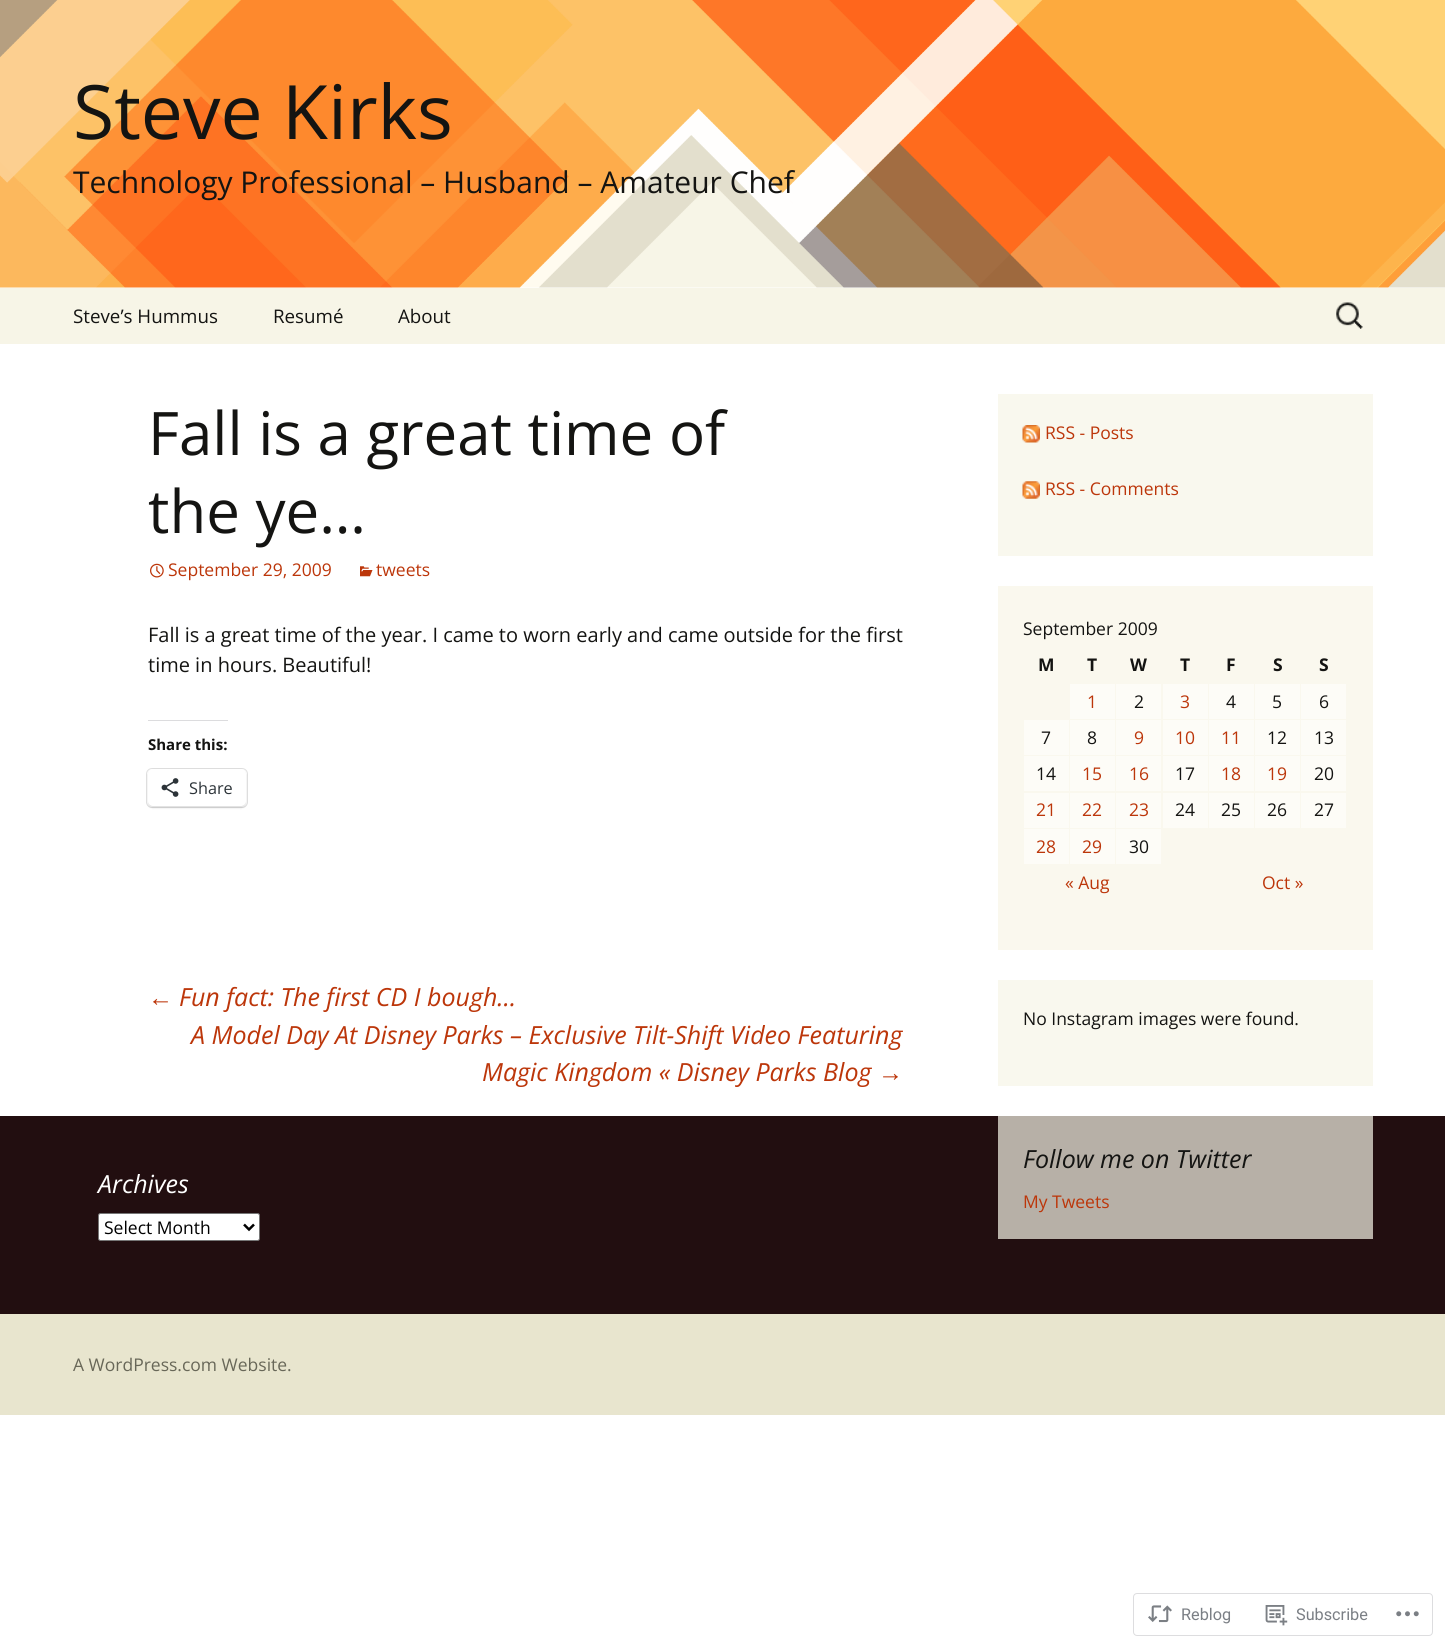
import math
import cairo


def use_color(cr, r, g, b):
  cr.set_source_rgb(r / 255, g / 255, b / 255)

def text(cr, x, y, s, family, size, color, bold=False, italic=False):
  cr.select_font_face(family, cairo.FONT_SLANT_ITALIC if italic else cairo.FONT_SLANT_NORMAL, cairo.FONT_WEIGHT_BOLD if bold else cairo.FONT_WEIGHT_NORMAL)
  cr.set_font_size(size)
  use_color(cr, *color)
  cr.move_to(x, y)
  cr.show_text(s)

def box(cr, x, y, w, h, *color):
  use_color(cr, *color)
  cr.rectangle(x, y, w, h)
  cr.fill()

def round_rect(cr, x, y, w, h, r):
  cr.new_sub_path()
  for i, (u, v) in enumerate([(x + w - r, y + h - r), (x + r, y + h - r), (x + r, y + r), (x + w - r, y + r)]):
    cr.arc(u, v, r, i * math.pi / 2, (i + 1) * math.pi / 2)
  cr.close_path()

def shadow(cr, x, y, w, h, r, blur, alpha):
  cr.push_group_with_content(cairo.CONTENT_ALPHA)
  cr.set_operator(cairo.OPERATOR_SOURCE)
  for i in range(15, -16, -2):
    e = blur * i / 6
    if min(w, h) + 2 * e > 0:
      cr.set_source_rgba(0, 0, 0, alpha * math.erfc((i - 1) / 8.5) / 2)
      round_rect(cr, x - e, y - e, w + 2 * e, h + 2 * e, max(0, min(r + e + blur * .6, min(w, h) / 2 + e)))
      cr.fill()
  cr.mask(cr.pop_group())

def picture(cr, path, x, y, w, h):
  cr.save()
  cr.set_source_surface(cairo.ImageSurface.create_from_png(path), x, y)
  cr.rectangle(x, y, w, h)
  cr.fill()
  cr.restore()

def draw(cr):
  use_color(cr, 255, 255, 255)
  cr.paint()
  picture(cr, "img_01.png", 0, 0, 1445, 288)
  box(cr, 0, 288, 1445, 56, 247, 245, 231)
  picture(cr, "img_02.png", 1336, 302, 27, 27)
  picture(cr, "img_03.png", 150, 563, 14, 15)
  picture(cr, "img_04.png", 360, 566, 13, 11)
  box(cr, 148, 720, 80, 1, 220, 220, 222)
  round_rect(cr, 146.5, 768.5, 101, 39, 5.5)
  use_color(cr, 224, 224, 224)
  cr.set_line_width(1)
  cr.stroke()
  use_color(cr, 0, 0, 0)
  shadow(cr, 148, 770, 98, 38, 5, 1, 0.12)
  use_color(cr, 255, 255, 255)
  round_rect(cr, 148, 769, 98, 37, 5)
  cr.fill()
  picture(cr, "img_05.png", 161, 778, 18, 19)
  box(cr, 998, 394, 375, 162, 249, 248, 238)
  picture(cr, "img_06.png", 1022, 425, 18, 18)
  picture(cr, "img_07.png", 1022, 481, 18, 18)
  box(cr, 998, 586, 375, 364, 250, 248, 238)
  box(cr, 1070, 684, 45, 35, 253, 252, 247)
  box(cr, 1116, 684, 45, 35, 253, 252, 247)
  box(cr, 1163, 684, 45, 35, 253, 252, 247)
  box(cr, 1209, 684, 45, 35, 253, 252, 247)
  box(cr, 1255, 684, 45, 35, 253, 252, 247)
  box(cr, 1301, 684, 45, 35, 253, 252, 247)
  box(cr, 1024, 720, 45, 35, 253, 252, 247)
  box(cr, 1070, 720, 45, 35, 253, 252, 247)
  box(cr, 1116, 720, 45, 35, 253, 252, 247)
  box(cr, 1163, 720, 45, 35, 253, 252, 247)
  box(cr, 1209, 720, 45, 35, 253, 252, 247)
  box(cr, 1255, 720, 45, 35, 253, 252, 247)
  box(cr, 1301, 720, 45, 35, 253, 252, 247)
  box(cr, 1024, 756, 45, 35, 253, 252, 247)
  box(cr, 1070, 756, 45, 35, 253, 252, 247)
  box(cr, 1116, 756, 45, 35, 253, 252, 247)
  box(cr, 1163, 756, 45, 35, 253, 252, 247)
  box(cr, 1209, 756, 45, 35, 253, 252, 247)
  box(cr, 1255, 756, 45, 35, 253, 252, 247)
  box(cr, 1301, 756, 45, 35, 253, 252, 247)
  box(cr, 1024, 793, 45, 35, 253, 252, 247)
  box(cr, 1070, 793, 45, 35, 253, 252, 247)
  box(cr, 1116, 793, 45, 35, 253, 252, 247)
  box(cr, 1163, 793, 45, 35, 253, 252, 247)
  box(cr, 1209, 793, 45, 35, 253, 252, 247)
  box(cr, 1255, 793, 45, 35, 253, 252, 247)
  box(cr, 1301, 793, 45, 35, 253, 252, 247)
  box(cr, 1024, 829, 45, 35, 253, 252, 247)
  box(cr, 1070, 829, 45, 35, 253, 252, 247)
  box(cr, 1116, 829, 45, 35, 253, 252, 247)
  box(cr, 998, 980, 375, 106, 249, 248, 238)
  box(cr, 0, 1116, 1445, 198, 34, 14, 16)
  box(cr, 998, 1116, 375, 123, 183, 176, 167)
  box(cr, 0, 1314, 1445, 101, 232, 229, 206)
  use_color(cr, 255, 255, 255)
  round_rect(cr, 98.5, 1213.5, 161, 27, 2)
  cr.fill_preserve()
  use_color(cr, 118, 118, 118)
  cr.stroke()
  cr.new_path()
  cr.move_to(244, 1224.5)
  cr.line_to(249, 1229.5)
  cr.line_to(254, 1224.5)
  use_color(cr, 0, 0, 0)
  cr.set_line_width(2.5)
  cr.stroke()
  round_rect(cr, 1133.5, 1593.5, 299, 42, 3.5)
  use_color(cr, 221, 221, 223)
  cr.set_line_width(1)
  cr.stroke()
  picture(cr, "img_08.png", 1148, 1605, 24, 18)
  picture(cr, "img_09.png", 1265, 1605, 23, 21)
  picture(cr, "img_10.png", 1396, 1611, 23, 6)
  text(cr, 73, 139, "Steve Kirks", "Open Sans", 75, (20, 20, 18))
  text(cr, 73, 193, "Technology Professional – Husband – Amateur Chef", "Open Sans", 30, (20, 20, 18))
  text(cr, 73, 323, "Steve’s Hummus", "Open Sans", 18.75, (20, 20, 18))
  text(cr, 273, 323, "Resumé", "Open Sans", 18.75, (20, 20, 18))
  text(cr, 398, 323, "About", "Open Sans", 18.75, (20, 20, 18))
  text(cr, 148, 455, "Fall is a great time of", "Open Sans", 60, (20, 20, 18))
  text(cr, 148, 533, "the ye…", "Open Sans", 60, (20, 20, 18))
  text(cr, 168, 576, "September 29, 2009", "Open Sans", 17.5, (188, 54, 10))
  text(cr, 376, 576, "tweets", "Open Sans", 17.5, (188, 54, 10))
  text(cr, 148, 642, "Fall is a great time of the year. I came to worn early and came outside for the first", "Open Sans", 20, (20, 20, 18))
  text(cr, 148, 672, "time in hours. Beautiful!", "Open Sans", 20, (20, 20, 18))
  text(cr, 148, 750, "Share this:", "Open Sans", 15, (20, 20, 18), bold=True)
  text(cr, 189, 794, "Share", "Open Sans", 16.25, (44, 51, 56))
  text(cr, 148, 1006, "←", "Liberation Sans", 25, (188, 54, 10), italic=True)
  text(cr, 179, 1006, "Fun fact: The first CD I bough…", "Open Sans", 25, (188, 54, 10), italic=True)
  text(cr, 191, 1044, "A Model Day At Disney Parks – Exclusive Tilt-Shift Video Featuring", "Open Sans", 25, (188, 54, 10), italic=True)
  text(cr, 482, 1081, "Magic Kingdom « Disney Parks Blog", "Open Sans", 25, (188, 54, 10), italic=True)
  text(cr, 878, 1081, "→", "Liberation Sans", 25, (188, 54, 10), italic=True)
  text(cr, 1045, 439, "RSS - Posts", "Open Sans", 17.5, (188, 54, 10))
  text(cr, 1045, 495, "RSS - Comments", "Open Sans", 17.5, (188, 54, 10))
  text(cr, 1023, 635, "September 2009", "Open Sans", 17.5, (20, 20, 18))
  text(cr, 1038, 671, "M", "Open Sans", 17.5, (20, 20, 18), bold=True)
  text(cr, 1087, 671, "T", "Open Sans", 17.5, (20, 20, 18), bold=True)
  text(cr, 1130, 671, "W", "Open Sans", 17.5, (20, 20, 18), bold=True)
  text(cr, 1180, 671, "T", "Open Sans", 17.5, (20, 20, 18), bold=True)
  text(cr, 1226, 671, "F", "Open Sans", 17.5, (20, 20, 18), bold=True)
  text(cr, 1273, 671, "S", "Open Sans", 17.5, (20, 20, 18), bold=True)
  text(cr, 1319, 671, "S", "Open Sans", 17.5, (20, 20, 18), bold=True)
  text(cr, 1087, 708, "1", "Open Sans", 17.5, (188, 54, 10))
  text(cr, 1134, 708, "2", "Open Sans", 17.5, (20, 20, 18))
  text(cr, 1180, 708, "3", "Open Sans", 17.5, (188, 54, 10))
  text(cr, 1226, 708, "4", "Open Sans", 17.5, (20, 20, 18))
  text(cr, 1272, 708, "5", "Open Sans", 17.5, (20, 20, 18))
  text(cr, 1319, 708, "6", "Open Sans", 17.5, (20, 20, 18))
  text(cr, 1041, 744, "7", "Open Sans", 17.5, (20, 20, 18))
  text(cr, 1087, 744, "8", "Open Sans", 17.5, (20, 20, 18))
  text(cr, 1134, 744, "9", "Open Sans", 17.5, (188, 54, 10))
  text(cr, 1175, 744, "10", "Open Sans", 17.5, (188, 54, 10))
  text(cr, 1221, 744, "11", "Open Sans", 17.5, (188, 54, 10))
  text(cr, 1267, 744, "12", "Open Sans", 17.5, (20, 20, 18))
  text(cr, 1314, 744, "13", "Open Sans", 17.5, (20, 20, 18))
  text(cr, 1036, 780, "14", "Open Sans", 17.5, (20, 20, 18))
  text(cr, 1082, 780, "15", "Open Sans", 17.5, (188, 54, 10))
  text(cr, 1129, 780, "16", "Open Sans", 17.5, (188, 54, 10))
  text(cr, 1175, 780, "17", "Open Sans", 17.5, (20, 20, 18))
  text(cr, 1221, 780, "18", "Open Sans", 17.5, (188, 54, 10))
  text(cr, 1267, 780, "19", "Open Sans", 17.5, (188, 54, 10))
  text(cr, 1314, 780, "20", "Open Sans", 17.5, (20, 20, 18))
  text(cr, 1036, 816, "21", "Open Sans", 17.5, (188, 54, 10))
  text(cr, 1082, 816, "22", "Open Sans", 17.5, (188, 54, 10))
  text(cr, 1129, 816, "23", "Open Sans", 17.5, (188, 54, 10))
  text(cr, 1175, 816, "24", "Open Sans", 17.5, (20, 20, 18))
  text(cr, 1221, 816, "25", "Open Sans", 17.5, (20, 20, 18))
  text(cr, 1267, 816, "26", "Open Sans", 17.5, (20, 20, 18))
  text(cr, 1314, 816, "27", "Open Sans", 17.5, (20, 20, 18))
  text(cr, 1036, 853, "28", "Open Sans", 17.5, (188, 54, 10))
  text(cr, 1082, 853, "29", "Open Sans", 17.5, (188, 54, 10))
  text(cr, 1129, 853, "30", "Open Sans", 17.5, (20, 20, 18))
  text(cr, 1065, 889, "« Aug", "Open Sans", 17.5, (188, 54, 10))
  text(cr, 1262, 889, "Oct »", "Open Sans", 17.5, (188, 54, 10))
  text(cr, 1023, 1025, "No Instagram images were found.", "Open Sans", 17.5, (20, 20, 18))
  text(cr, 1023, 1168, "Follow me on Twitter", "Open Sans", 25, (20, 20, 18), italic=True)
  text(cr, 1023, 1208, "My Tweets", "Open Sans", 17.5, (188, 54, 10))
  text(cr, 98, 1193, "Archives", "Open Sans", 25, (255, 255, 255), italic=True)
  text(cr, 104, 1234, "Select Month", "Open Sans", 17.5, (0, 0, 0))
  text(cr, 73, 1371, "A WordPress.com Website.", "Open Sans", 17.5, (104, 103, 88))
  text(cr, 1181, 1620, "Reblog", "Roboto", 16.25, (123, 127, 133))
  text(cr, 1296, 1620, "Subscribe", "Roboto", 16.25, (123, 127, 133))


surface = cairo.ImageSurface(cairo.FORMAT_RGB24, 1445, 1648)
cr = cairo.Context(surface)
options = cairo.FontOptions()
options.set_hint_metrics(cairo.HINT_METRICS_OFF)
options.set_hint_style(cairo.HINT_STYLE_NONE)
cr.set_font_options(options)
cr.set_miter_limit(4)
draw(cr)
surface.write_to_png("out.png")
